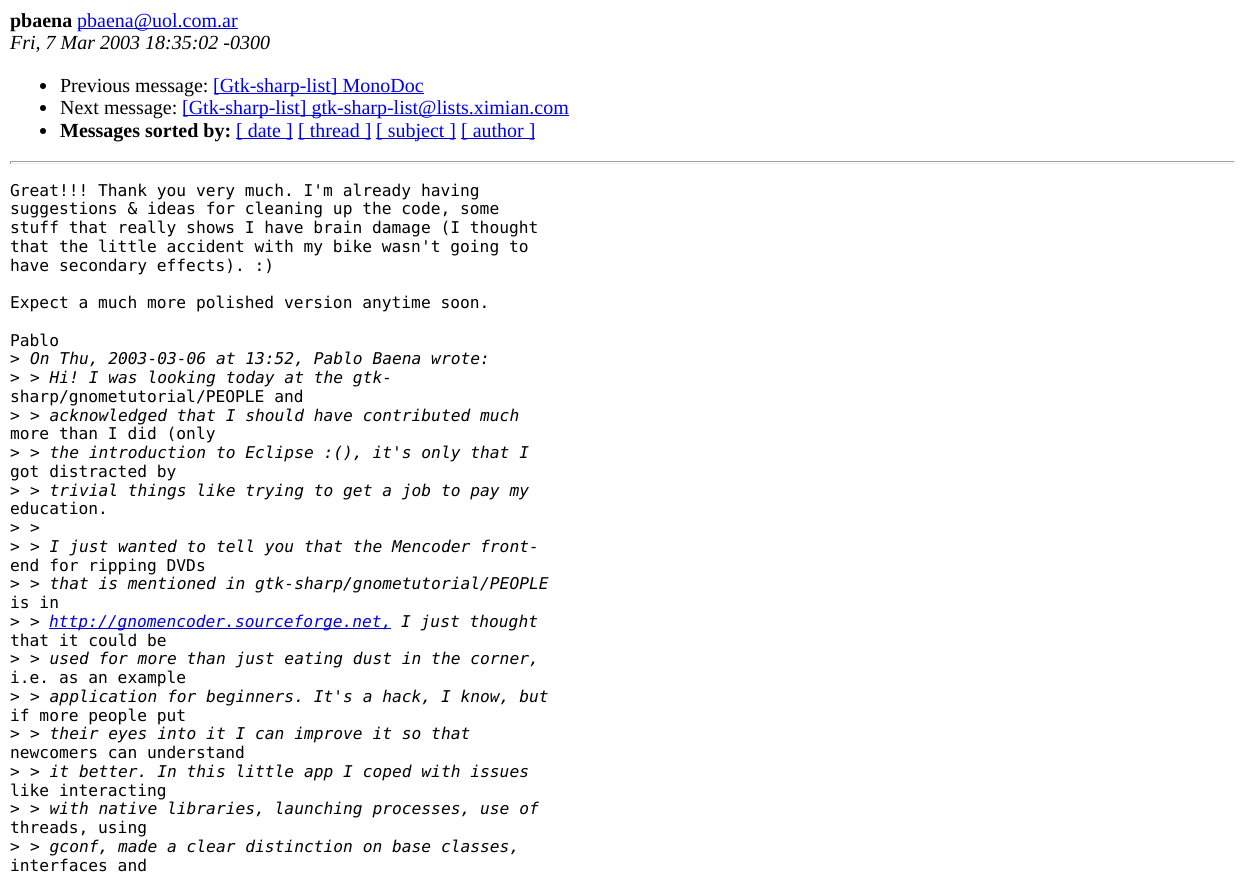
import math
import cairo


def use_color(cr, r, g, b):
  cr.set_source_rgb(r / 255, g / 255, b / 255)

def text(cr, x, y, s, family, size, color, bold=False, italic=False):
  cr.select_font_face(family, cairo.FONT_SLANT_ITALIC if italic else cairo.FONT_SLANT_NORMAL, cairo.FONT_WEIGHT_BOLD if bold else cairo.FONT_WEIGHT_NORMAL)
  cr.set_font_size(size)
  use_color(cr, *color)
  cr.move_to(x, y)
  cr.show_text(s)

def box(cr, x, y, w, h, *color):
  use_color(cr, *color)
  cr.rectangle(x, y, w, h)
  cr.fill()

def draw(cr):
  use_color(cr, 255, 255, 255)
  cr.paint()
  box(cr, 78, 28, 160, 1, 0, 0, 238)
  use_color(cr, 0, 0, 0)
  cr.arc(43, 86, 3, 0, 2 * math.pi)
  cr.fill()
  box(cr, 214, 93, 210, 1, 0, 0, 238)
  use_color(cr, 0, 0, 0)
  cr.arc(43, 108, 3, 0, 2 * math.pi)
  cr.fill()
  box(cr, 183, 115, 386, 1, 0, 0, 238)
  use_color(cr, 0, 0, 0)
  cr.arc(43, 131, 3, 0, 2 * math.pi)
  cr.fill()
  box(cr, 236, 138, 57, 1, 0, 0, 238)
  box(cr, 298, 138, 73, 1, 0, 0, 238)
  box(cr, 376, 138, 80, 1, 0, 0, 238)
  box(cr, 461, 138, 74, 1, 0, 0, 238)
  box(cr, 10, 161, 1225, 1, 159, 159, 159)
  box(cr, 1234, 161, 1, 3, 238, 238, 238)
  box(cr, 10, 163, 1225, 1, 238, 238, 238)
  box(cr, 10, 161, 1, 3, 159, 159, 159)
  box(cr, 49, 628, 342, 1, 0, 0, 238)
  text(cr, 10, 27, "pbaena", "Liberation Serif", 20, (0, 0, 0), bold=True)
  text(cr, 77, 27, "pbaena@uol.com.ar", "Liberation Serif", 20, (0, 0, 238))
  text(cr, 10, 49, "Fri, 7 Mar 2003 18:35:02 -0300", "Liberation Serif", 20, (0, 0, 0), italic=True)
  text(cr, 60, 92, "Previous message:", "Liberation Serif", 20, (0, 0, 0))
  text(cr, 213, 92, "[Gtk-sharp-list] MonoDoc", "Liberation Serif", 20, (0, 0, 238))
  text(cr, 60, 114, "Next message:", "Liberation Serif", 20, (0, 0, 0))
  text(cr, 182, 114, "[Gtk-sharp-list] gtk-sharp-list@lists.ximian.com", "Liberation Serif", 20, (0, 0, 238))
  text(cr, 60, 137, "Messages sorted by:", "Liberation Serif", 20, (0, 0, 0), bold=True)
  text(cr, 236, 137, "[ date ]", "Liberation Serif", 20, (0, 0, 238))
  text(cr, 298, 137, "[ thread ]", "Liberation Serif", 20, (0, 0, 238))
  text(cr, 376, 137, "[ subject ]", "Liberation Serif", 20, (0, 0, 238))
  text(cr, 461, 137, "[ author ]", "Liberation Serif", 20, (0, 0, 238))
  text(cr, 10, 196, "Great!!! Thank you very much. I'm already having", "DejaVu Sans Mono", 16.25, (0, 0, 0))
  text(cr, 10, 214, "suggestions & ideas for cleaning up the code, some", "DejaVu Sans Mono", 16.25, (0, 0, 0))
  text(cr, 10, 233, "stuff that really shows I have brain damage (I thought", "DejaVu Sans Mono", 16.25, (0, 0, 0))
  text(cr, 10, 252, "that the little accident with my bike wasn't going to", "DejaVu Sans Mono", 16.25, (0, 0, 0))
  text(cr, 10, 271, "have secondary effects). :)", "DejaVu Sans Mono", 16.25, (0, 0, 0))
  text(cr, 10, 308, "Expect a much more polished version anytime soon.", "DejaVu Sans Mono", 16.25, (0, 0, 0))
  text(cr, 10, 346, "Pablo", "DejaVu Sans Mono", 16.25, (0, 0, 0))
  text(cr, 10, 364, ">", "DejaVu Sans Mono", 16.25, (0, 0, 0))
  text(cr, 30, 364, "On Thu, 2003-03-06 at 13:52, Pablo Baena wrote:", "DejaVu Sans Mono", 16.25, (0, 0, 0), italic=True)
  text(cr, 10, 383, ">", "DejaVu Sans Mono", 16.25, (0, 0, 0))
  text(cr, 30, 383, "> Hi! I was looking today at the gtk-", "DejaVu Sans Mono", 16.25, (0, 0, 0), italic=True)
  text(cr, 10, 402, "sharp/gnometutorial/PEOPLE and", "DejaVu Sans Mono", 16.25, (0, 0, 0))
  text(cr, 10, 421, ">", "DejaVu Sans Mono", 16.25, (0, 0, 0))
  text(cr, 30, 421, "> acknowledged that I should have contributed much", "DejaVu Sans Mono", 16.25, (0, 0, 0), italic=True)
  text(cr, 10, 439, "more than I did (only", "DejaVu Sans Mono", 16.25, (0, 0, 0))
  text(cr, 10, 458, ">", "DejaVu Sans Mono", 16.25, (0, 0, 0))
  text(cr, 30, 458, "> the introduction to Eclipse :(), it's only that I", "DejaVu Sans Mono", 16.25, (0, 0, 0), italic=True)
  text(cr, 10, 477, "got distracted by", "DejaVu Sans Mono", 16.25, (0, 0, 0))
  text(cr, 10, 496, ">", "DejaVu Sans Mono", 16.25, (0, 0, 0))
  text(cr, 30, 496, "> trivial things like trying to get a job to pay my", "DejaVu Sans Mono", 16.25, (0, 0, 0), italic=True)
  text(cr, 10, 514, "education.", "DejaVu Sans Mono", 16.25, (0, 0, 0))
  text(cr, 10, 533, ">", "DejaVu Sans Mono", 16.25, (0, 0, 0))
  text(cr, 30, 533, ">", "DejaVu Sans Mono", 16.25, (0, 0, 0), italic=True)
  text(cr, 10, 552, ">", "DejaVu Sans Mono", 16.25, (0, 0, 0))
  text(cr, 30, 552, "> I just wanted to tell you that the Mencoder front-", "DejaVu Sans Mono", 16.25, (0, 0, 0), italic=True)
  text(cr, 10, 571, "end for ripping DVDs", "DejaVu Sans Mono", 16.25, (0, 0, 0))
  text(cr, 10, 589, ">", "DejaVu Sans Mono", 16.25, (0, 0, 0))
  text(cr, 30, 589, "> that is mentioned in gtk-sharp/gnometutorial/PEOPLE", "DejaVu Sans Mono", 16.25, (0, 0, 0), italic=True)
  text(cr, 10, 608, "is in", "DejaVu Sans Mono", 16.25, (0, 0, 0))
  text(cr, 10, 627, ">", "DejaVu Sans Mono", 16.25, (0, 0, 0))
  text(cr, 30, 627, ">", "DejaVu Sans Mono", 16.25, (0, 0, 0), italic=True)
  text(cr, 49, 627, "http://gnomencoder.sourceforge.net,", "DejaVu Sans Mono", 16.25, (0, 0, 238), italic=True)
  text(cr, 401, 627, "I just thought", "DejaVu Sans Mono", 16.25, (0, 0, 0), italic=True)
  text(cr, 10, 646, "that it could be", "DejaVu Sans Mono", 16.25, (0, 0, 0))
  text(cr, 10, 664, ">", "DejaVu Sans Mono", 16.25, (0, 0, 0))
  text(cr, 30, 664, "> used for more than just eating dust in the corner,", "DejaVu Sans Mono", 16.25, (0, 0, 0), italic=True)
  text(cr, 10, 683, "i.e. as an example", "DejaVu Sans Mono", 16.25, (0, 0, 0))
  text(cr, 10, 702, ">", "DejaVu Sans Mono", 16.25, (0, 0, 0))
  text(cr, 30, 702, "> application for beginners. It's a hack, I know, but", "DejaVu Sans Mono", 16.25, (0, 0, 0), italic=True)
  text(cr, 10, 721, "if more people put", "DejaVu Sans Mono", 16.25, (0, 0, 0))
  text(cr, 10, 739, ">", "DejaVu Sans Mono", 16.25, (0, 0, 0))
  text(cr, 30, 739, "> their eyes into it I can improve it so that", "DejaVu Sans Mono", 16.25, (0, 0, 0), italic=True)
  text(cr, 10, 758, "newcomers can understand", "DejaVu Sans Mono", 16.25, (0, 0, 0))
  text(cr, 10, 777, ">", "DejaVu Sans Mono", 16.25, (0, 0, 0))
  text(cr, 30, 777, "> it better. In this little app I coped with issues", "DejaVu Sans Mono", 16.25, (0, 0, 0), italic=True)
  text(cr, 10, 796, "like interacting", "DejaVu Sans Mono", 16.25, (0, 0, 0))
  text(cr, 10, 814, ">", "DejaVu Sans Mono", 16.25, (0, 0, 0))
  text(cr, 30, 814, "> with native libraries, launching processes, use of", "DejaVu Sans Mono", 16.25, (0, 0, 0), italic=True)
  text(cr, 10, 833, "threads, using", "DejaVu Sans Mono", 16.25, (0, 0, 0))
  text(cr, 10, 852, ">", "DejaVu Sans Mono", 16.25, (0, 0, 0))
  text(cr, 30, 852, "> gconf, made a clear distinction on base classes,", "DejaVu Sans Mono", 16.25, (0, 0, 0), italic=True)
  text(cr, 10, 871, "interfaces and", "DejaVu Sans Mono", 16.25, (0, 0, 0))


surface = cairo.ImageSurface(cairo.FORMAT_RGB24, 1244, 874)
cr = cairo.Context(surface)
options = cairo.FontOptions()
options.set_hint_metrics(cairo.HINT_METRICS_OFF)
options.set_hint_style(cairo.HINT_STYLE_NONE)
cr.set_font_options(options)
cr.set_miter_limit(4)
draw(cr)
surface.write_to_png("out.png")
